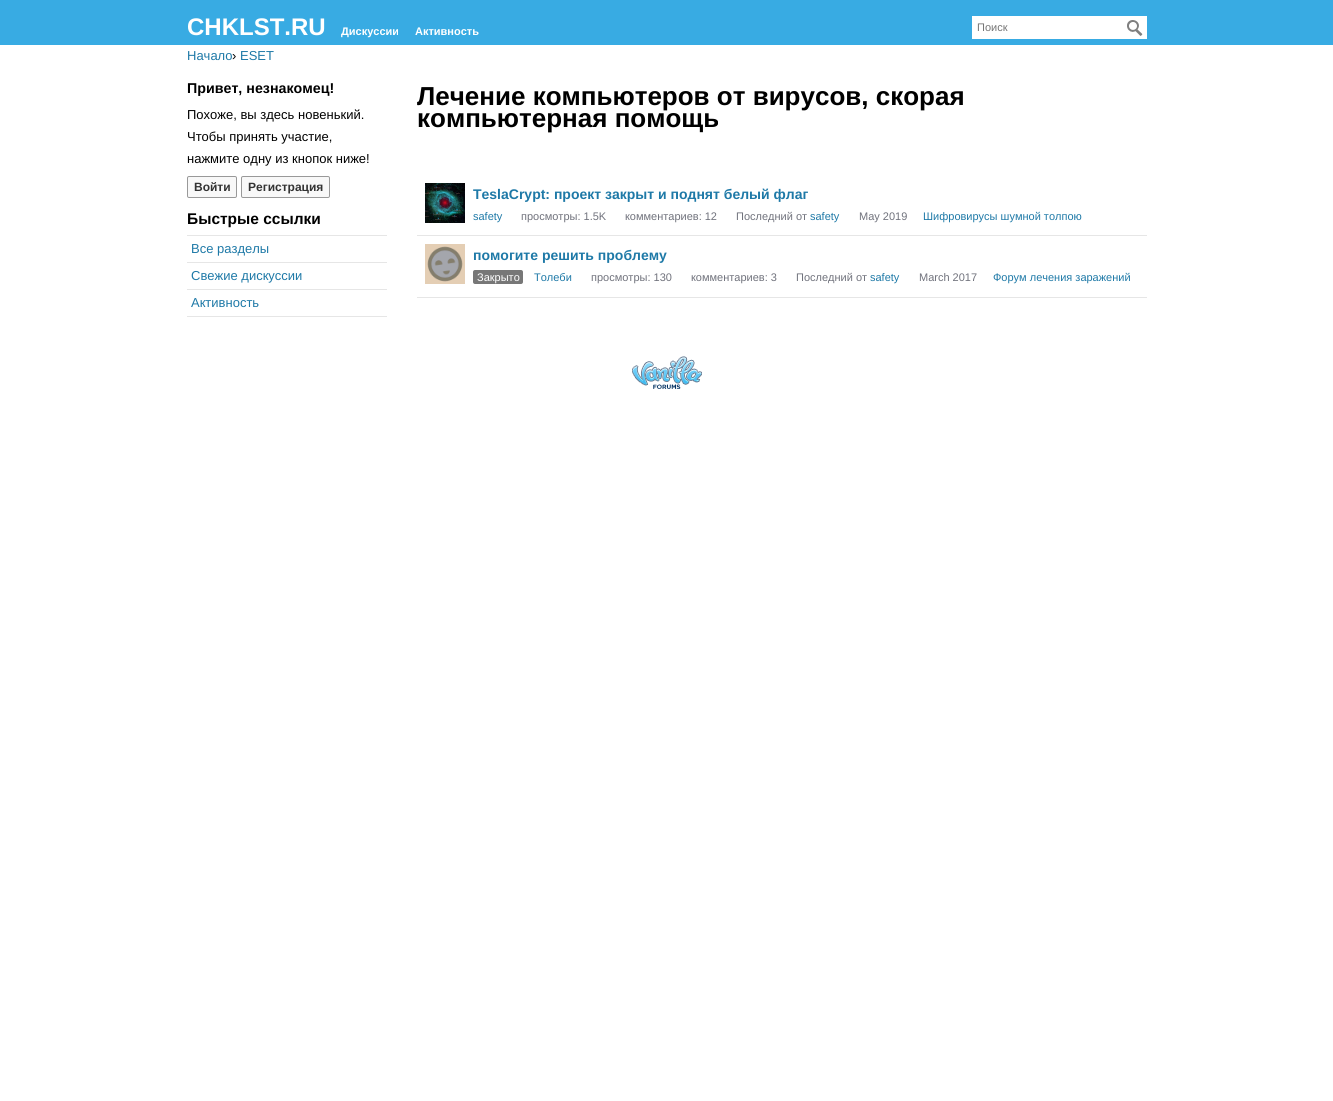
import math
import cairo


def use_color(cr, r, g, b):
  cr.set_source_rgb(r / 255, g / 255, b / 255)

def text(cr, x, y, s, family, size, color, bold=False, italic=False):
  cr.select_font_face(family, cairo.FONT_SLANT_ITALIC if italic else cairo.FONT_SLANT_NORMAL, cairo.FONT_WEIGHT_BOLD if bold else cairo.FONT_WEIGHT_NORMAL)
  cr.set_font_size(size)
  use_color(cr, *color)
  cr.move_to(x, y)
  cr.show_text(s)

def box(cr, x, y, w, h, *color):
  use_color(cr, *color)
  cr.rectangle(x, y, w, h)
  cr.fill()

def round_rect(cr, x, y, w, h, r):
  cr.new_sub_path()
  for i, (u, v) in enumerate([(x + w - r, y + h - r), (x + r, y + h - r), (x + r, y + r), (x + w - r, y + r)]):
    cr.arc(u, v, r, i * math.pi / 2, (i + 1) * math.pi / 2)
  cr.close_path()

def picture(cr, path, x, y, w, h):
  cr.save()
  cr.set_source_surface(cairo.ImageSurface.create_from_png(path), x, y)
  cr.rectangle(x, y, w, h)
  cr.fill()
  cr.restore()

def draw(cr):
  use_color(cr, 255, 255, 255)
  cr.paint()
  box(cr, 0, 0, 1333, 45, 56, 171, 227)
  box(cr, 972, 16, 175, 23, 255, 255, 255)
  picture(cr, "img_01.png", 1127, 20, 16, 16)
  use_color(cr, 248, 248, 248)
  round_rect(cr, 187.5, 176.5, 49, 21, 1.5)
  cr.fill_preserve()
  use_color(cr, 153, 153, 153)
  cr.set_line_width(1)
  cr.stroke()
  use_color(cr, 248, 248, 248)
  round_rect(cr, 241.5, 176.5, 88, 21, 1.5)
  cr.fill_preserve()
  use_color(cr, 153, 153, 153)
  cr.stroke()
  box(cr, 187, 235, 200, 1, 230, 230, 230)
  box(cr, 187, 262, 200, 1, 230, 230, 230)
  box(cr, 187, 289, 200, 1, 230, 230, 230)
  box(cr, 187, 316, 200, 1, 230, 230, 230)
  box(cr, 417, 235, 730, 1, 230, 230, 230)
  picture(cr, "img_02.png", 425, 183, 40, 40)
  box(cr, 417, 297, 730, 1, 230, 230, 230)
  picture(cr, "img_03.png", 425, 244, 40, 40)
  use_color(cr, 119, 119, 119)
  round_rect(cr, 473, 270, 50, 14, 2)
  cr.fill()
  picture(cr, "img_04.png", 632, 356, 70, 33)
  text(cr, 187, 35, "CHKLST.RU", "Liberation Sans", 24, (255, 255, 255), bold=True)
  text(cr, 341, 35, "Дискуссии", "Liberation Sans", 11, (255, 255, 255), bold=True)
  text(cr, 415, 35, "Активность", "Liberation Sans", 11, (255, 255, 255), bold=True)
  text(cr, 977, 31, "Поиск", "Liberation Sans", 11, (117, 117, 117))
  text(cr, 187, 60, "Начало", "Liberation Sans", 13, (30, 121, 167))
  text(cr, 232, 60, "›", "Liberation Sans", 13, (0, 0, 0))
  text(cr, 240, 60, "ESET", "Liberation Sans", 13, (30, 121, 167))
  text(cr, 187, 93, "Привет, незнакомец!", "Liberation Sans", 14.25, (0, 0, 0), bold=True)
  text(cr, 187, 119, "Похоже, вы здесь новенький.", "Liberation Sans", 13, (0, 0, 0))
  text(cr, 187, 141, "Чтобы принять участие,", "Liberation Sans", 13, (0, 0, 0))
  text(cr, 187, 163, "нажмите одну из кнопок ниже!", "Liberation Sans", 13, (0, 0, 0))
  text(cr, 194, 191, "Войти", "Liberation Sans", 12, (51, 51, 51), bold=True)
  text(cr, 248, 191, "Регистрация", "Liberation Sans", 12, (51, 51, 51), bold=True)
  text(cr, 187, 224, "Быстрые ссылки", "Liberation Sans", 15.5, (0, 0, 0), bold=True)
  text(cr, 191, 253, "Все разделы", "Liberation Sans", 13, (30, 121, 167))
  text(cr, 191, 280, "Свежие дискуссии", "Liberation Sans", 13, (30, 121, 167))
  text(cr, 191, 307, "Активность", "Liberation Sans", 13, (30, 121, 167))
  text(cr, 417, 105, "Лечение компьютеров от вирусов, скорая", "Liberation Sans", 26, (0, 0, 0), bold=True)
  text(cr, 417, 127, "компьютерная помощь", "Liberation Sans", 26, (0, 0, 0), bold=True)
  text(cr, 473, 199, "TeslaCrypt: проект закрыт и поднят белый флаг", "Liberation Sans", 14, (30, 121, 167), bold=True)
  text(cr, 473, 220, "safety", "Liberation Sans", 11, (30, 121, 167))
  text(cr, 521, 220, "просмотры: 1.5K", "Liberation Sans", 11, (112, 114, 124))
  text(cr, 625, 220, "комментариев: 12", "Liberation Sans", 11, (112, 114, 124))
  text(cr, 736, 220, "Последний от", "Liberation Sans", 11, (112, 114, 124))
  text(cr, 810, 220, "safety", "Liberation Sans", 11, (30, 121, 167))
  text(cr, 859, 220, "May 2019", "Liberation Sans", 11, (112, 114, 124))
  text(cr, 923, 220, "Шифровирусы шумной толпою", "Liberation Sans", 11, (30, 121, 167))
  text(cr, 473, 260, "помогите решить проблему", "Liberation Sans", 14, (30, 121, 167), bold=True)
  text(cr, 477, 281, "Закрыто", "Liberation Sans", 11, (255, 255, 255))
  text(cr, 534, 281, "Толеби", "Liberation Sans", 11, (30, 121, 167))
  text(cr, 591, 281, "просмотры: 130", "Liberation Sans", 11, (112, 114, 124))
  text(cr, 691, 281, "комментариев: 3", "Liberation Sans", 11, (112, 114, 124))
  text(cr, 796, 281, "Последний от", "Liberation Sans", 11, (112, 114, 124))
  text(cr, 870, 281, "safety", "Liberation Sans", 11, (30, 121, 167))
  text(cr, 919, 281, "March 2017", "Liberation Sans", 11, (112, 114, 124))
  text(cr, 993, 281, "Форум лечения заражений", "Liberation Sans", 11, (30, 121, 167))


surface = cairo.ImageSurface(cairo.FORMAT_RGB24, 1333, 1101)
cr = cairo.Context(surface)
options = cairo.FontOptions()
options.set_hint_metrics(cairo.HINT_METRICS_OFF)
options.set_hint_style(cairo.HINT_STYLE_NONE)
cr.set_font_options(options)
cr.set_miter_limit(4)
draw(cr)
surface.write_to_png("out.png")
